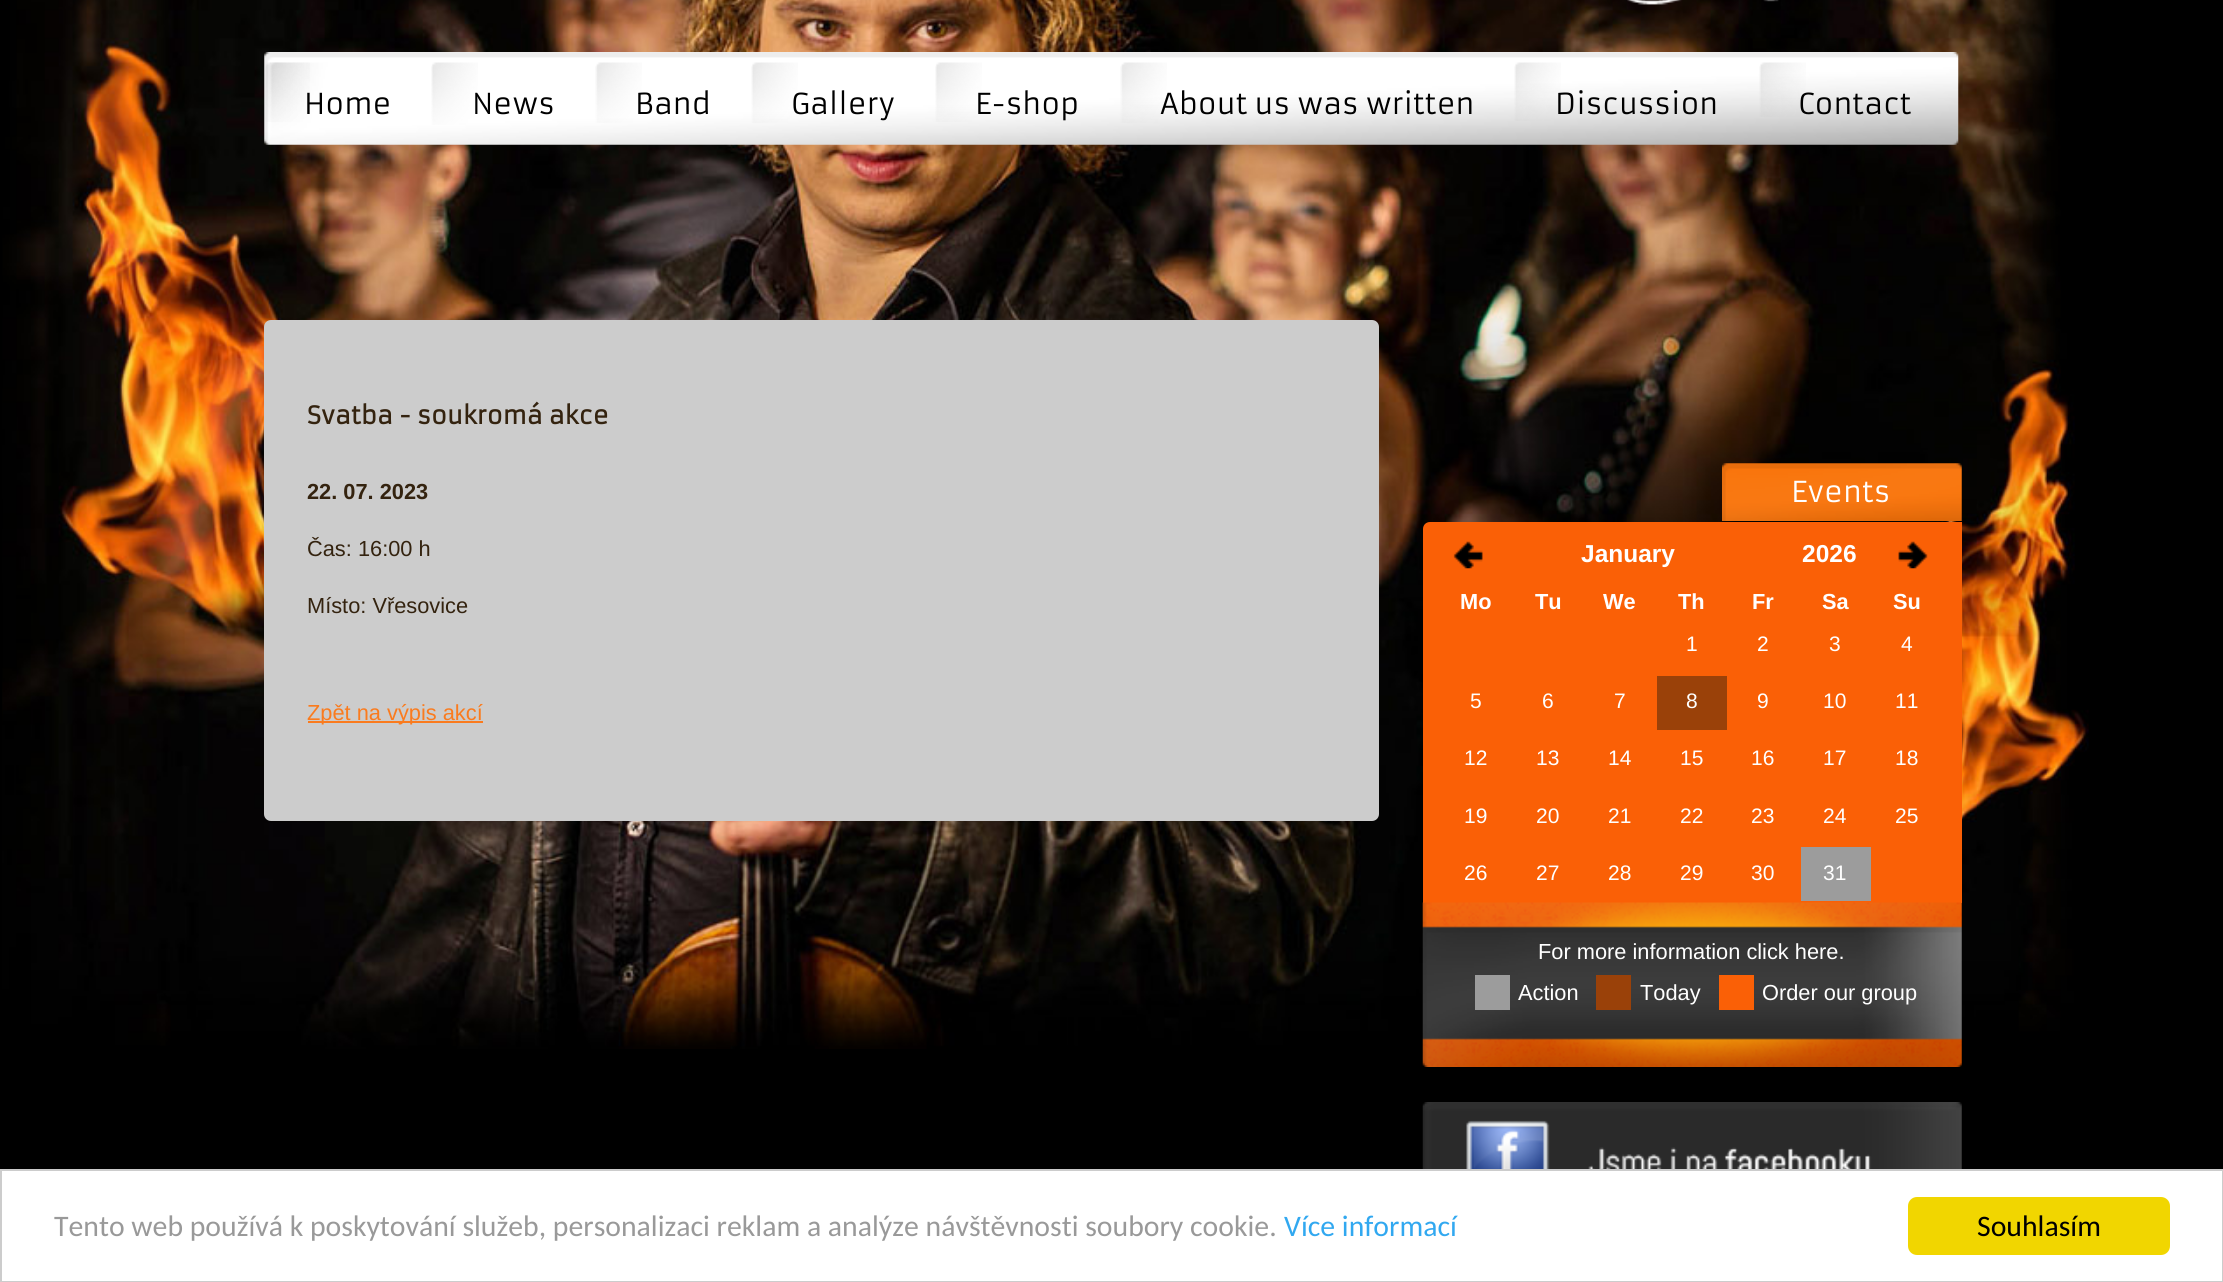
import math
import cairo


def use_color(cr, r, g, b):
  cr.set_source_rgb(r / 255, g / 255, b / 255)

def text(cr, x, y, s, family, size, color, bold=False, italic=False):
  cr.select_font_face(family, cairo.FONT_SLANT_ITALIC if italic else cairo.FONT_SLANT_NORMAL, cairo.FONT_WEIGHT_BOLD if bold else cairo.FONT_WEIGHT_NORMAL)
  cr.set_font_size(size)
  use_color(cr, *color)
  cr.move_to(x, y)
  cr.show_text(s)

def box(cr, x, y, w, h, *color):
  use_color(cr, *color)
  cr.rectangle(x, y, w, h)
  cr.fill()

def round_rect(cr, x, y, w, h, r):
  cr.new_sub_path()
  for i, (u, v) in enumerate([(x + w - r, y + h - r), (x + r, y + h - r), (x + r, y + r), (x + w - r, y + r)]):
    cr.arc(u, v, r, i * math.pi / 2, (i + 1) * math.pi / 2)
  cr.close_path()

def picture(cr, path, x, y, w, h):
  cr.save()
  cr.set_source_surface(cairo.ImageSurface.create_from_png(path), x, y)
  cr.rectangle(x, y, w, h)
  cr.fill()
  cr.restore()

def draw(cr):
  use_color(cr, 0, 0, 0)
  cr.paint()
  picture(cr, "img_01.png", 2, 0, 2087, 1049)
  picture(cr, "img_02.png", 1627, 0, 152, 5)
  picture(cr, "img_03.png", 264, 52, 1695, 93)
  picture(cr, "img_04.png", 265, 62, 45, 60)
  picture(cr, "img_05.png", 431, 62, 47, 63)
  picture(cr, "img_06.png", 595, 62, 47, 61)
  picture(cr, "img_07.png", 751, 62, 47, 61)
  picture(cr, "img_08.png", 935, 62, 47, 60)
  picture(cr, "img_09.png", 1120, 62, 47, 61)
  picture(cr, "img_10.png", 1514, 62, 47, 59)
  picture(cr, "img_11.png", 1759, 62, 47, 55)
  use_color(cr, 204, 204, 204)
  round_rect(cr, 264, 320, 1115, 501, 7)
  cr.fill()
  box(cr, 308, 721, 175, 2, 250, 123, 30)
  picture(cr, "img_12.png", 1722, 463, 240, 58)
  use_color(cr, 250, 96, 6)
  cr.new_path()
  cr.move_to(1430, 522)
  cr.line_to(1962, 522)
  cr.line_to(1962, 903)
  cr.line_to(1423, 903)
  cr.line_to(1423, 529)
  cr.curve_to(1423, 525, 1426, 522, 1430, 522)
  cr.close_path()
  cr.fill()
  picture(cr, "img_13.png", 1453, 541, 30, 28)
  picture(cr, "img_14.png", 1898, 541, 30, 28)
  box(cr, 1657, 676, 70, 54, 154, 65, 9)
  box(cr, 1801, 847, 70, 54, 156, 156, 156)
  picture(cr, "img_15.png", 1422, 902, 540, 165)
  box(cr, 1475, 975, 35, 35, 156, 156, 156)
  box(cr, 1596, 975, 35, 35, 154, 65, 9)
  box(cr, 1719, 975, 35, 35, 250, 96, 6)
  picture(cr, "img_16.png", 1422, 1102, 540, 67)
  use_color(cr, 255, 255, 255)
  cr.rectangle(1, 1170, 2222, 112)
  cr.fill_preserve()
  use_color(cr, 204, 204, 204)
  cr.stroke()
  use_color(cr, 241, 214, 0)
  round_rect(cr, 1908, 1197, 262, 58, 9)
  cr.fill()
  text(cr, 304, 114, "Home", "Armata", 28.4, (0, 0, 0))
  text(cr, 472, 114, "News", "Armata", 28.4, (0, 0, 0))
  text(cr, 635, 114, "Band", "Armata", 28.4, (0, 0, 0))
  text(cr, 791, 114, "Gallery", "Armata", 28.4, (0, 0, 0))
  text(cr, 975, 114, "E-shop", "Armata", 28.4, (0, 0, 0))
  text(cr, 1160, 114, "About us was written", "Armata", 28.4, (0, 0, 0))
  text(cr, 1555, 114, "Discussion", "Armata", 28.4, (0, 0, 0))
  text(cr, 1798, 114, "Contact", "Armata", 28.4, (0, 0, 0))
  text(cr, 307, 424, "Svatba - soukromá akce", "Armata", 24, (52, 35, 15), bold=True)
  text(cr, 307, 499, "22. 07. 2023", "Liberation Sans", 21.8, (52, 35, 15), bold=True)
  text(cr, 307, 556, "Čas: 16:00 h", "Liberation Sans", 21.8, (52, 35, 15))
  text(cr, 307, 613, "Místo: Vřesovice", "Liberation Sans", 21.8, (52, 35, 15))
  text(cr, 307, 720, "Zpět na výpis akcí", "Liberation Sans", 21.8, (250, 123, 30))
  text(cr, 1791, 502, "Events", "Armata", 28.4, (255, 255, 255))
  text(cr, 1581, 562, "January", "Liberation Sans", 24.5, (255, 255, 255), bold=True)
  text(cr, 1802, 562, "2026", "Liberation Sans", 24.5, (255, 255, 255), bold=True)
  text(cr, 1460, 609, "Mo", "Liberation Sans", 21.8, (255, 255, 255), bold=True)
  text(cr, 1535, 609, "Tu", "Liberation Sans", 21.8, (255, 255, 255), bold=True)
  text(cr, 1603, 609, "We", "Liberation Sans", 21.8, (255, 255, 255), bold=True)
  text(cr, 1678, 609, "Th", "Liberation Sans", 21.8, (255, 255, 255), bold=True)
  text(cr, 1752, 609, "Fr", "Liberation Sans", 21.8, (255, 255, 255), bold=True)
  text(cr, 1822, 609, "Sa", "Liberation Sans", 21.8, (255, 255, 255), bold=True)
  text(cr, 1893, 609, "Su", "Liberation Sans", 21.8, (255, 255, 255), bold=True)
  text(cr, 1686, 651, "1", "Liberation Sans", 21, (255, 255, 255))
  text(cr, 1757, 651, "2", "Liberation Sans", 21, (255, 255, 255))
  text(cr, 1829, 651, "3", "Liberation Sans", 21, (255, 255, 255))
  text(cr, 1901, 651, "4", "Liberation Sans", 21, (255, 255, 255))
  text(cr, 1470, 708, "5", "Liberation Sans", 21, (255, 255, 255))
  text(cr, 1542, 708, "6", "Liberation Sans", 21, (255, 255, 255))
  text(cr, 1614, 708, "7", "Liberation Sans", 21, (255, 255, 255))
  text(cr, 1686, 708, "8", "Liberation Sans", 21, (255, 255, 255))
  text(cr, 1757, 708, "9", "Liberation Sans", 21, (255, 255, 255))
  text(cr, 1823, 708, "10", "Liberation Sans", 21, (255, 255, 255))
  text(cr, 1895, 708, "11", "Liberation Sans", 21, (255, 255, 255))
  text(cr, 1464, 765, "12", "Liberation Sans", 21, (255, 255, 255))
  text(cr, 1536, 765, "13", "Liberation Sans", 21, (255, 255, 255))
  text(cr, 1608, 765, "14", "Liberation Sans", 21, (255, 255, 255))
  text(cr, 1680, 765, "15", "Liberation Sans", 21, (255, 255, 255))
  text(cr, 1751, 765, "16", "Liberation Sans", 21, (255, 255, 255))
  text(cr, 1823, 765, "17", "Liberation Sans", 21, (255, 255, 255))
  text(cr, 1895, 765, "18", "Liberation Sans", 21, (255, 255, 255))
  text(cr, 1464, 823, "19", "Liberation Sans", 21, (255, 255, 255))
  text(cr, 1536, 823, "20", "Liberation Sans", 21, (255, 255, 255))
  text(cr, 1608, 823, "21", "Liberation Sans", 21, (255, 255, 255))
  text(cr, 1680, 823, "22", "Liberation Sans", 21, (255, 255, 255))
  text(cr, 1751, 823, "23", "Liberation Sans", 21, (255, 255, 255))
  text(cr, 1823, 823, "24", "Liberation Sans", 21, (255, 255, 255))
  text(cr, 1895, 823, "25", "Liberation Sans", 21, (255, 255, 255))
  text(cr, 1464, 880, "26", "Liberation Sans", 21, (255, 255, 255))
  text(cr, 1536, 880, "27", "Liberation Sans", 21, (255, 255, 255))
  text(cr, 1608, 880, "28", "Liberation Sans", 21, (255, 255, 255))
  text(cr, 1680, 880, "29", "Liberation Sans", 21, (255, 255, 255))
  text(cr, 1751, 880, "30", "Liberation Sans", 21, (255, 255, 255))
  text(cr, 1823, 880, "31", "Liberation Sans", 21, (255, 255, 255))
  text(cr, 1538, 959, "For more information click here.", "Liberation Sans", 21.8, (255, 255, 255))
  text(cr, 1518, 1000, "Action", "Liberation Sans", 21.8, (255, 255, 255))
  text(cr, 1640, 1000, "Today", "Liberation Sans", 21.8, (255, 255, 255))
  text(cr, 1762, 1000, "Order our group", "Liberation Sans", 21.8, (255, 255, 255))
  text(cr, 54, 1236, "Tento web používá k poskytování služeb, personalizaci reklam a analýze návštěvnosti soubory cookie.", "Carlito", 29.75, (153, 153, 153))
  text(cr, 1284, 1236, "Více informací", "Carlito", 29.75, (49, 168, 240))
  text(cr, 1977, 1236, "Souhlasím", "Carlito", 29.75, (0, 0, 0))


surface = cairo.ImageSurface(cairo.FORMAT_RGB24, 2223, 1282)
cr = cairo.Context(surface)
options = cairo.FontOptions()
options.set_hint_metrics(cairo.HINT_METRICS_OFF)
options.set_hint_style(cairo.HINT_STYLE_NONE)
cr.set_font_options(options)
cr.set_miter_limit(4)
draw(cr)
surface.write_to_png("out.png")
